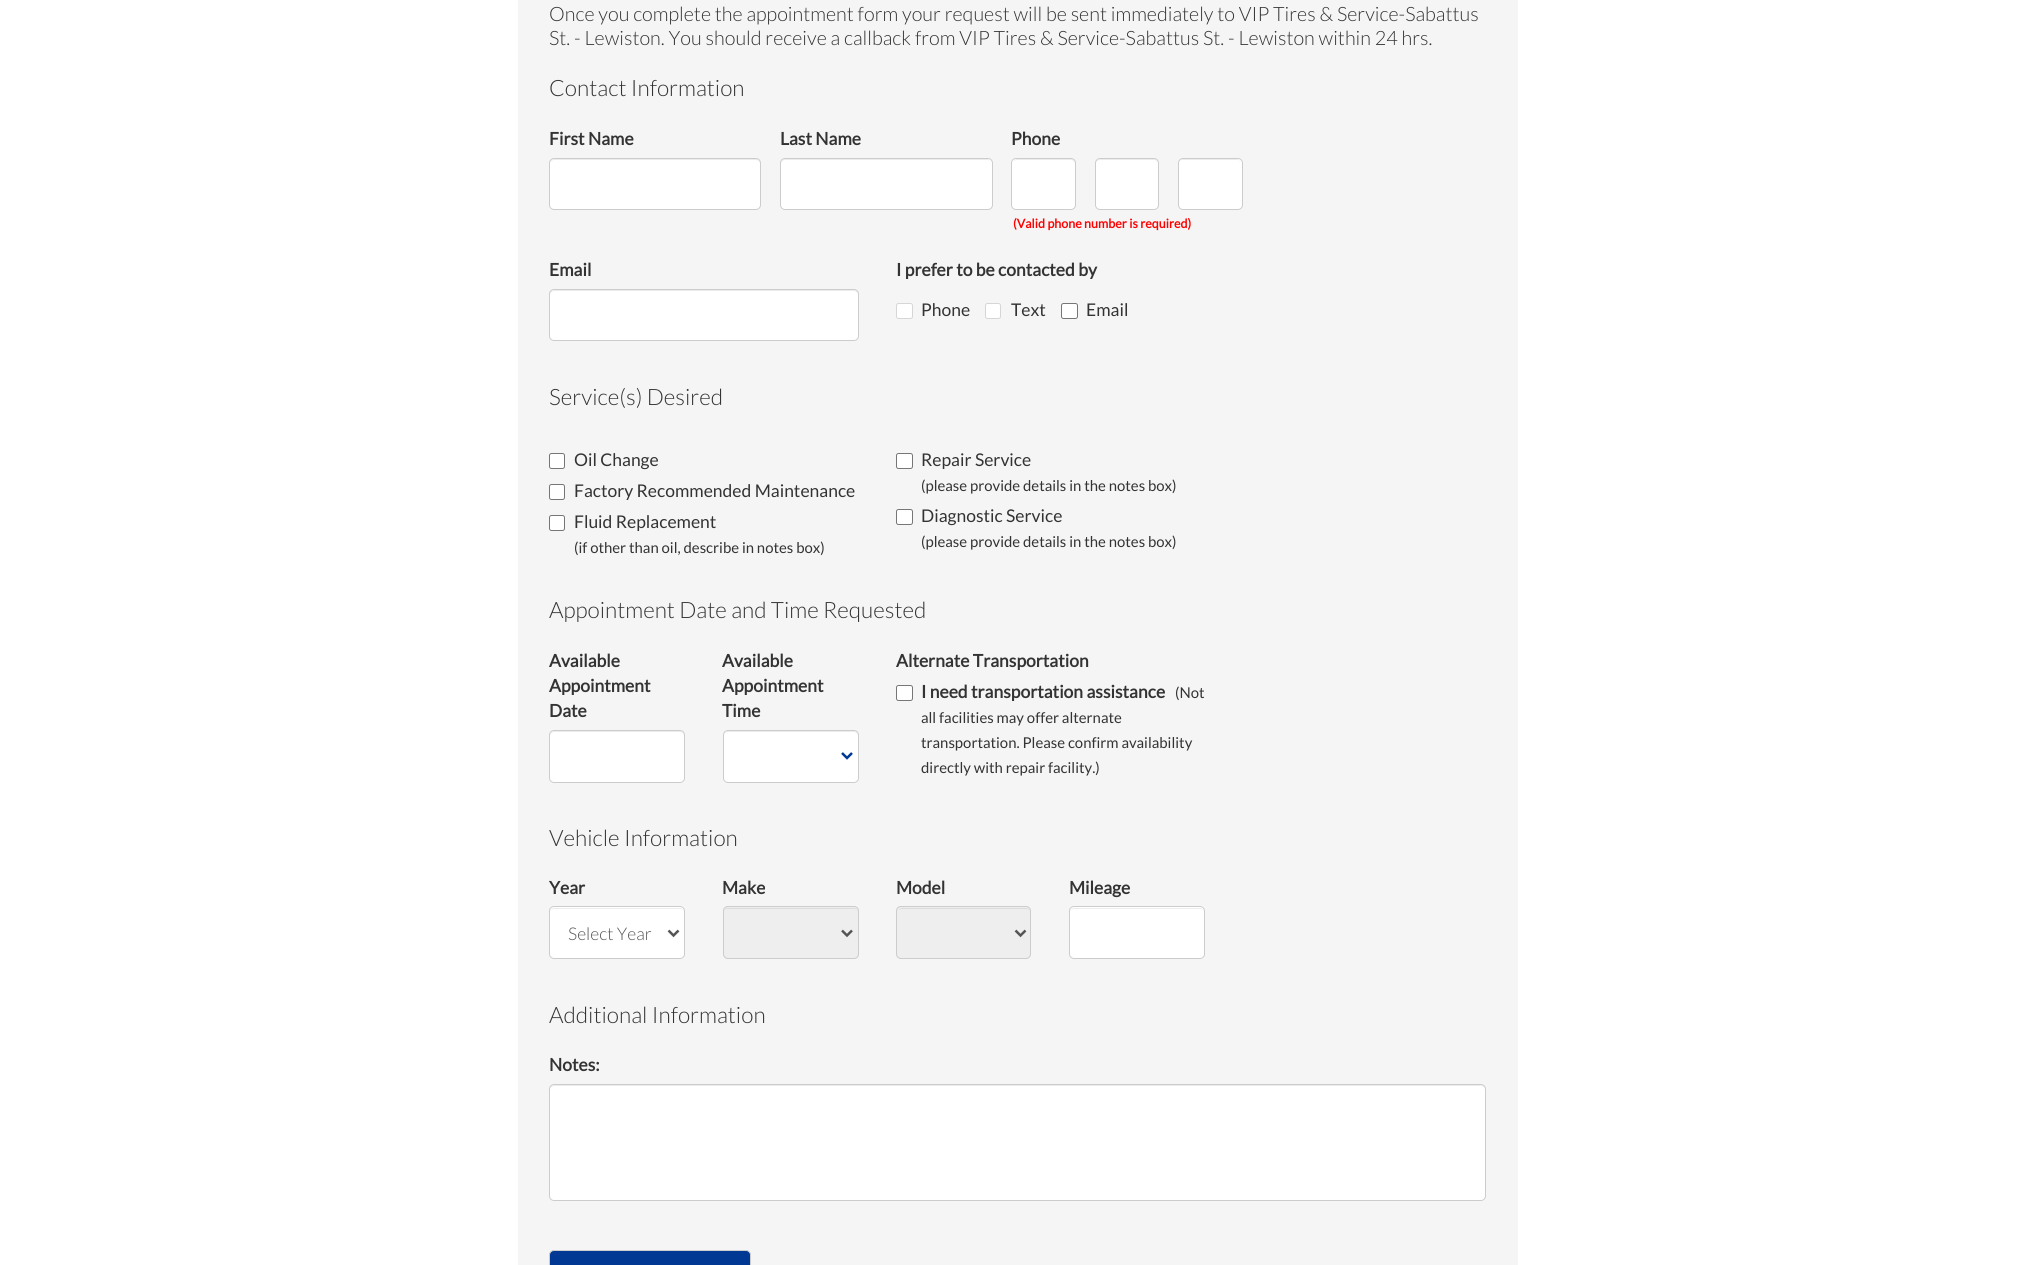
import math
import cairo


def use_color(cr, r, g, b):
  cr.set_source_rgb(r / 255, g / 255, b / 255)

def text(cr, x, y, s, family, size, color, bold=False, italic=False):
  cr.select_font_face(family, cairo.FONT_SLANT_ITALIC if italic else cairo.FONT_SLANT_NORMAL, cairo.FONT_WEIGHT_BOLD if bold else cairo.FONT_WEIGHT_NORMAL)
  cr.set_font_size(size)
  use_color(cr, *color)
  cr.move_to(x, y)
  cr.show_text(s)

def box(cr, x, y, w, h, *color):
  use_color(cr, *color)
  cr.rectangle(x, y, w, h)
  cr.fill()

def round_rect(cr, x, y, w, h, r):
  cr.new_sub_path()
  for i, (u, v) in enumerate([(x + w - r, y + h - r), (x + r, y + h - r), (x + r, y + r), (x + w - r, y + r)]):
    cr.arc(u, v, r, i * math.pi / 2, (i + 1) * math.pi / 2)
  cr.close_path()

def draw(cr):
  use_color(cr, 255, 255, 255)
  cr.paint()
  box(cr, 518, 0, 1000, 1265, 245, 245, 245)
  use_color(cr, 255, 255, 255)
  round_rect(cr, 549, 158, 212, 52, 5)
  cr.fill()
  use_color(cr, 236, 236, 236)
  cr.new_path()
  cr.move_to(554, 160)
  cr.line_to(756, 160)
  cr.curve_to(758, 160, 760, 162, 760, 164)
  cr.line_to(760, 163)
  cr.curve_to(760, 161, 758, 159, 756, 159)
  cr.line_to(554, 159)
  cr.curve_to(552, 159, 550, 161, 550, 163)
  cr.line_to(550, 164)
  cr.curve_to(550, 162, 552, 160, 554, 160)
  cr.close_path()
  cr.fill()
  round_rect(cr, 549.5, 158.5, 211, 51, 4.5)
  use_color(cr, 204, 204, 204)
  cr.set_line_width(1)
  cr.stroke()
  use_color(cr, 255, 255, 255)
  round_rect(cr, 780, 158, 213, 52, 5)
  cr.fill()
  use_color(cr, 236, 236, 236)
  cr.new_path()
  cr.move_to(785, 160)
  cr.line_to(988, 160)
  cr.curve_to(990, 160, 991, 162, 991, 164)
  cr.line_to(991, 163)
  cr.curve_to(991, 161, 989, 159, 987, 159)
  cr.line_to(785, 159)
  cr.curve_to(783, 159, 781, 161, 781, 163)
  cr.line_to(781, 164)
  cr.curve_to(781, 162, 783, 160, 785, 160)
  cr.close_path()
  cr.fill()
  round_rect(cr, 780.5, 158.5, 212, 51, 4.5)
  use_color(cr, 204, 204, 204)
  cr.stroke()
  use_color(cr, 255, 255, 255)
  round_rect(cr, 1011, 158, 65, 52, 5)
  cr.fill()
  use_color(cr, 236, 236, 236)
  cr.new_path()
  cr.move_to(1016, 160)
  cr.line_to(1071, 160)
  cr.curve_to(1073, 160, 1075, 162, 1075, 164)
  cr.line_to(1075, 163)
  cr.curve_to(1075, 161, 1073, 159, 1071, 159)
  cr.line_to(1017, 159)
  cr.curve_to(1016, 159, 1014, 160, 1014, 161)
  cr.close_path()
  cr.fill()
  round_rect(cr, 1011.5, 158.5, 64, 51, 4.5)
  use_color(cr, 204, 204, 204)
  cr.stroke()
  use_color(cr, 255, 255, 255)
  round_rect(cr, 1095, 158, 64, 52, 5)
  cr.fill()
  use_color(cr, 236, 236, 236)
  cr.new_path()
  cr.move_to(1100, 160)
  cr.line_to(1154, 160)
  cr.curve_to(1156, 160, 1158, 162, 1158, 164)
  cr.curve_to(1158, 157, 1150, 159, 1145, 159)
  cr.line_to(1109, 159)
  cr.curve_to(1104, 159, 1096, 157, 1096, 164)
  cr.curve_to(1096, 162, 1098, 160, 1100, 160)
  cr.close_path()
  cr.fill()
  round_rect(cr, 1095.5, 158.5, 63, 51, 4.5)
  use_color(cr, 204, 204, 204)
  cr.stroke()
  use_color(cr, 255, 255, 255)
  round_rect(cr, 1178, 158, 65, 52, 5)
  cr.fill()
  use_color(cr, 236, 236, 236)
  cr.new_path()
  cr.move_to(1182, 160)
  cr.line_to(1238, 160)
  cr.curve_to(1240, 160, 1241, 162, 1241, 164)
  cr.curve_to(1241, 157, 1233, 159, 1228, 159)
  cr.line_to(1192, 159)
  cr.curve_to(1187, 159, 1179, 157, 1179, 164)
  cr.curve_to(1179, 162, 1180, 160, 1182, 160)
  cr.close_path()
  cr.fill()
  round_rect(cr, 1178.5, 158.5, 64, 51, 4.5)
  use_color(cr, 204, 204, 204)
  cr.stroke()
  use_color(cr, 255, 255, 255)
  round_rect(cr, 549, 289, 310, 52, 5)
  cr.fill()
  use_color(cr, 236, 236, 236)
  cr.new_path()
  cr.move_to(554, 291)
  cr.line_to(854, 291)
  cr.curve_to(856, 291, 858, 293, 858, 295)
  cr.curve_to(858, 292, 857, 290, 854, 290)
  cr.line_to(554, 290)
  cr.line_to(551, 291)
  cr.curve_to(550, 292, 550, 294, 550, 295)
  cr.curve_to(550, 293, 552, 291, 554, 291)
  cr.close_path()
  cr.fill()
  round_rect(cr, 549.5, 289.5, 309, 51, 4.5)
  use_color(cr, 204, 204, 204)
  cr.stroke()
  use_color(cr, 255, 255, 255)
  round_rect(cr, 896, 303, 17, 16, 2.5)
  cr.fill()
  round_rect(cr, 896.5, 303.5, 16, 15, 2)
  cr.set_source_rgba(0.463, 0.463, 0.463, 0.3)
  cr.stroke()
  use_color(cr, 255, 255, 255)
  round_rect(cr, 985, 303, 16, 16, 2.5)
  cr.fill()
  round_rect(cr, 985.5, 303.5, 15, 15, 2)
  cr.set_source_rgba(0.463, 0.463, 0.463, 0.3)
  cr.stroke()
  use_color(cr, 255, 255, 255)
  round_rect(cr, 1061.5, 303.5, 16, 15, 2)
  cr.fill_preserve()
  use_color(cr, 118, 118, 118)
  cr.stroke()
  use_color(cr, 255, 255, 255)
  round_rect(cr, 549.5, 453.5, 15, 15, 2)
  cr.fill_preserve()
  use_color(cr, 118, 118, 118)
  cr.stroke()
  use_color(cr, 255, 255, 255)
  round_rect(cr, 549.5, 484.5, 15, 15, 2)
  cr.fill_preserve()
  use_color(cr, 118, 118, 118)
  cr.stroke()
  use_color(cr, 255, 255, 255)
  round_rect(cr, 549.5, 515.5, 15, 15, 2)
  cr.fill_preserve()
  use_color(cr, 118, 118, 118)
  cr.stroke()
  use_color(cr, 255, 255, 255)
  round_rect(cr, 896.5, 453.5, 16, 15, 2)
  cr.fill_preserve()
  use_color(cr, 118, 118, 118)
  cr.stroke()
  use_color(cr, 255, 255, 255)
  round_rect(cr, 896.5, 509.5, 16, 15, 2)
  cr.fill_preserve()
  use_color(cr, 118, 118, 118)
  cr.stroke()
  use_color(cr, 255, 255, 255)
  round_rect(cr, 549, 730, 136, 53, 5)
  cr.fill()
  use_color(cr, 236, 236, 236)
  cr.new_path()
  cr.move_to(554, 732)
  cr.line_to(680, 732)
  cr.curve_to(682, 732, 684, 734, 684, 736)
  cr.line_to(684, 735)
  cr.curve_to(684, 733, 682, 731, 680, 731)
  cr.line_to(554, 731)
  cr.curve_to(552, 731, 550, 733, 550, 735)
  cr.line_to(550, 736)
  cr.curve_to(550, 734, 552, 732, 554, 732)
  cr.close_path()
  cr.fill()
  round_rect(cr, 549.5, 730.5, 135, 52, 4.5)
  use_color(cr, 204, 204, 204)
  cr.stroke()
  use_color(cr, 255, 255, 255)
  round_rect(cr, 723, 730, 136, 53, 5)
  cr.fill()
  use_color(cr, 236, 236, 236)
  cr.new_path()
  cr.move_to(728, 732)
  cr.line_to(854, 732)
  cr.curve_to(856, 732, 858, 734, 858, 736)
  cr.line_to(858, 735)
  cr.curve_to(858, 733, 856, 731, 854, 731)
  cr.line_to(728, 731)
  cr.curve_to(726, 731, 724, 733, 724, 735)
  cr.line_to(724, 736)
  cr.curve_to(724, 734, 725, 732, 728, 732)
  cr.close_path()
  cr.fill()
  round_rect(cr, 723.5, 730.5, 135, 52, 4.5)
  use_color(cr, 204, 204, 204)
  cr.stroke()
  cr.new_path()
  cr.move_to(842, 753)
  cr.line_to(847, 758)
  cr.line_to(852, 753)
  use_color(cr, 0, 56, 147)
  cr.set_line_width(2.5)
  cr.stroke()
  use_color(cr, 255, 255, 255)
  round_rect(cr, 896.5, 685.5, 16, 15, 2)
  cr.fill_preserve()
  use_color(cr, 118, 118, 118)
  cr.set_line_width(1)
  cr.stroke()
  use_color(cr, 255, 255, 255)
  round_rect(cr, 549, 906, 136, 53, 5)
  cr.fill()
  use_color(cr, 236, 236, 236)
  cr.new_path()
  cr.move_to(554, 909)
  cr.line_to(680, 909)
  cr.curve_to(682, 909, 684, 910, 684, 912)
  cr.curve_to(684, 910, 682, 908, 680, 908)
  cr.line_to(554, 908)
  cr.curve_to(552, 908, 550, 910, 550, 912)
  cr.curve_to(550, 910, 552, 909, 554, 909)
  cr.close_path()
  cr.fill()
  round_rect(cr, 549.5, 906.5, 135, 52, 4.5)
  use_color(cr, 204, 204, 204)
  cr.stroke()
  cr.new_path()
  cr.move_to(668.5, 930.5)
  cr.line_to(673.5, 935.5)
  cr.line_to(678.5, 930.5)
  use_color(cr, 85, 85, 85)
  cr.set_line_width(2.5)
  cr.stroke()
  use_color(cr, 238, 238, 238)
  round_rect(cr, 723, 906, 136, 53, 5)
  cr.fill()
  use_color(cr, 220, 220, 220)
  cr.new_path()
  cr.move_to(728, 909)
  cr.line_to(854, 909)
  cr.curve_to(856, 909, 858, 910, 858, 912)
  cr.curve_to(858, 910, 856, 908, 854, 908)
  cr.line_to(728, 908)
  cr.curve_to(726, 908, 725, 909, 724, 910)
  cr.curve_to(725, 909, 726, 909, 728, 909)
  cr.close_path()
  cr.fill()
  round_rect(cr, 723.5, 906.5, 135, 52, 4.5)
  use_color(cr, 204, 204, 204)
  cr.set_line_width(1)
  cr.stroke()
  cr.new_path()
  cr.move_to(842, 930.5)
  cr.line_to(847, 935.5)
  cr.line_to(852, 930.5)
  use_color(cr, 85, 85, 85)
  cr.set_line_width(2.5)
  cr.stroke()
  use_color(cr, 238, 238, 238)
  round_rect(cr, 896, 906, 135, 53, 5)
  cr.fill()
  use_color(cr, 220, 220, 220)
  cr.new_path()
  cr.move_to(901, 909)
  cr.line_to(1026, 909)
  cr.curve_to(1028, 909, 1030, 910, 1030, 912)
  cr.curve_to(1030, 910, 1028, 908, 1026, 908)
  cr.line_to(902, 908)
  cr.curve_to(901, 908, 899, 909, 899, 910)
  cr.close_path()
  cr.fill()
  round_rect(cr, 896.5, 906.5, 134, 52, 4.5)
  use_color(cr, 204, 204, 204)
  cr.set_line_width(1)
  cr.stroke()
  cr.new_path()
  cr.move_to(1015.5, 930.5)
  cr.line_to(1020.5, 935.5)
  cr.line_to(1025.5, 930.5)
  use_color(cr, 85, 85, 85)
  cr.set_line_width(2.5)
  cr.stroke()
  use_color(cr, 255, 255, 255)
  round_rect(cr, 1069, 906, 136, 53, 5)
  cr.fill()
  use_color(cr, 236, 236, 236)
  cr.new_path()
  cr.move_to(1074, 909)
  cr.line_to(1200, 909)
  cr.curve_to(1202, 909, 1204, 910, 1204, 912)
  cr.curve_to(1204, 910, 1202, 908, 1200, 908)
  cr.line_to(1074, 908)
  cr.curve_to(1072, 908, 1070, 910, 1070, 912)
  cr.curve_to(1070, 910, 1072, 909, 1074, 909)
  cr.close_path()
  cr.fill()
  round_rect(cr, 1069.5, 906.5, 135, 52, 4.5)
  use_color(cr, 204, 204, 204)
  cr.set_line_width(1)
  cr.stroke()
  use_color(cr, 255, 255, 255)
  round_rect(cr, 549, 1084, 937, 117, 5)
  cr.fill()
  use_color(cr, 236, 236, 236)
  cr.new_path()
  cr.move_to(554, 1086)
  cr.line_to(1481, 1086)
  cr.curve_to(1483, 1086, 1485, 1088, 1485, 1090)
  cr.curve_to(1485, 1087, 1484, 1085, 1481, 1085)
  cr.line_to(554, 1085)
  cr.curve_to(551, 1085, 550, 1087, 550, 1090)
  cr.curve_to(550, 1088, 552, 1086, 554, 1086)
  cr.close_path()
  cr.fill()
  round_rect(cr, 549.5, 1084.5, 936, 116, 4.5)
  use_color(cr, 204, 204, 204)
  cr.stroke()
  use_color(cr, 0, 56, 147)
  round_rect(cr, 549.5, 1250.5, 201, 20, 4.5)
  cr.fill_preserve()
  use_color(cr, 204, 204, 204)
  cr.stroke()
  text(cr, 549, 21, "Once you complete the appointment form your request will be sent immediately to VIP Tires & Service-Sabattus", "Lato Light", 19.75, (51, 51, 51))
  text(cr, 549, 45, "St. - Lewiston. You should receive a callback from VIP Tires & Service-Sabattus St. - Lewiston within 24 hrs.", "Lato Light", 19.75, (51, 51, 51))
  text(cr, 549, 96, "Contact Information", "Lato Light", 22.5, (51, 51, 51))
  text(cr, 549, 145, "First Name", "Lato", 17.5, (51, 51, 51), bold=True)
  text(cr, 780, 145, "Last Name", "Lato", 17.5, (51, 51, 51), bold=True)
  text(cr, 1011, 145, "Phone", "Lato", 17.5, (51, 51, 51), bold=True)
  text(cr, 1013, 228, "(Valid phone number is required)", "Lato", 12.5, (255, 0, 0), bold=True)
  text(cr, 549, 276, "Email", "Lato", 17.5, (51, 51, 51), bold=True)
  text(cr, 896, 276, "I prefer to be contacted by", "Lato", 17.5, (51, 51, 51), bold=True)
  text(cr, 921, 316, "Phone", "Lato", 17.5, (51, 51, 51))
  text(cr, 1011, 316, "Text", "Lato", 17.5, (51, 51, 51))
  text(cr, 1086, 316, "Email", "Lato", 17.5, (51, 51, 51))
  text(cr, 549, 405, "Service(s) Desired", "Lato Light", 22.5, (51, 51, 51))
  text(cr, 574, 466, "Oil Change", "Lato", 17.5, (51, 51, 51))
  text(cr, 574, 497, "Factory Recommended Maintenance", "Lato", 17.5, (51, 51, 51))
  text(cr, 574, 528, "Fluid Replacement", "Lato", 17.5, (51, 51, 51))
  text(cr, 574, 553, "(if other than oil, describe in notes box)", "Lato", 14.9, (51, 51, 51))
  text(cr, 921, 466, "Repair Service", "Lato", 17.5, (51, 51, 51))
  text(cr, 921, 491, "(please provide details in the notes box)", "Lato", 14.9, (51, 51, 51))
  text(cr, 921, 522, "Diagnostic Service", "Lato", 17.5, (51, 51, 51))
  text(cr, 921, 547, "(please provide details in the notes box)", "Lato", 14.9, (51, 51, 51))
  text(cr, 549, 618, "Appointment Date and Time Requested", "Lato Light", 22.5, (51, 51, 51))
  text(cr, 549, 667, "Available", "Lato", 17.5, (51, 51, 51), bold=True)
  text(cr, 549, 692, "Appointment", "Lato", 17.5, (51, 51, 51), bold=True)
  text(cr, 549, 717, "Date", "Lato", 17.5, (51, 51, 51), bold=True)
  text(cr, 722, 667, "Available", "Lato", 17.5, (51, 51, 51), bold=True)
  text(cr, 722, 692, "Appointment", "Lato", 17.5, (51, 51, 51), bold=True)
  text(cr, 722, 717, "Time", "Lato", 17.5, (51, 51, 51), bold=True)
  text(cr, 896, 667, "Alternate Transportation", "Lato", 17.5, (51, 51, 51), bold=True)
  text(cr, 921, 698, "I need transportation assistance", "Lato", 17.5, (51, 51, 51), bold=True)
  text(cr, 1175, 698, "(Not", "Lato", 14.9, (51, 51, 51))
  text(cr, 921, 723, "all facilities may offer alternate", "Lato", 14.9, (51, 51, 51))
  text(cr, 921, 748, "transportation. Please confirm availability", "Lato", 14.9, (51, 51, 51))
  text(cr, 921, 773, "directly with repair facility.)", "Lato", 14.9, (51, 51, 51))
  text(cr, 549, 846, "Vehicle Information", "Lato Light", 22.5, (51, 51, 51))
  text(cr, 549, 894, "Year", "Lato", 17.5, (51, 51, 51), bold=True)
  text(cr, 568, 940, "Select Year", "Lato Light", 17.5, (85, 85, 85))
  text(cr, 722, 894, "Make", "Lato", 17.5, (51, 51, 51), bold=True)
  text(cr, 896, 894, "Model", "Lato", 17.5, (51, 51, 51), bold=True)
  text(cr, 1069, 894, "Mileage", "Lato", 17.5, (51, 51, 51), bold=True)
  text(cr, 549, 1023, "Additional Information", "Lato Light", 22.5, (51, 51, 51))
  text(cr, 549, 1071, "Notes:", "Lato", 17.5, (51, 51, 51), bold=True)


surface = cairo.ImageSurface(cairo.FORMAT_RGB24, 2035, 1265)
cr = cairo.Context(surface)
options = cairo.FontOptions()
options.set_hint_metrics(cairo.HINT_METRICS_OFF)
options.set_hint_style(cairo.HINT_STYLE_NONE)
cr.set_font_options(options)
cr.set_miter_limit(4)
draw(cr)
surface.write_to_png("out.png")
